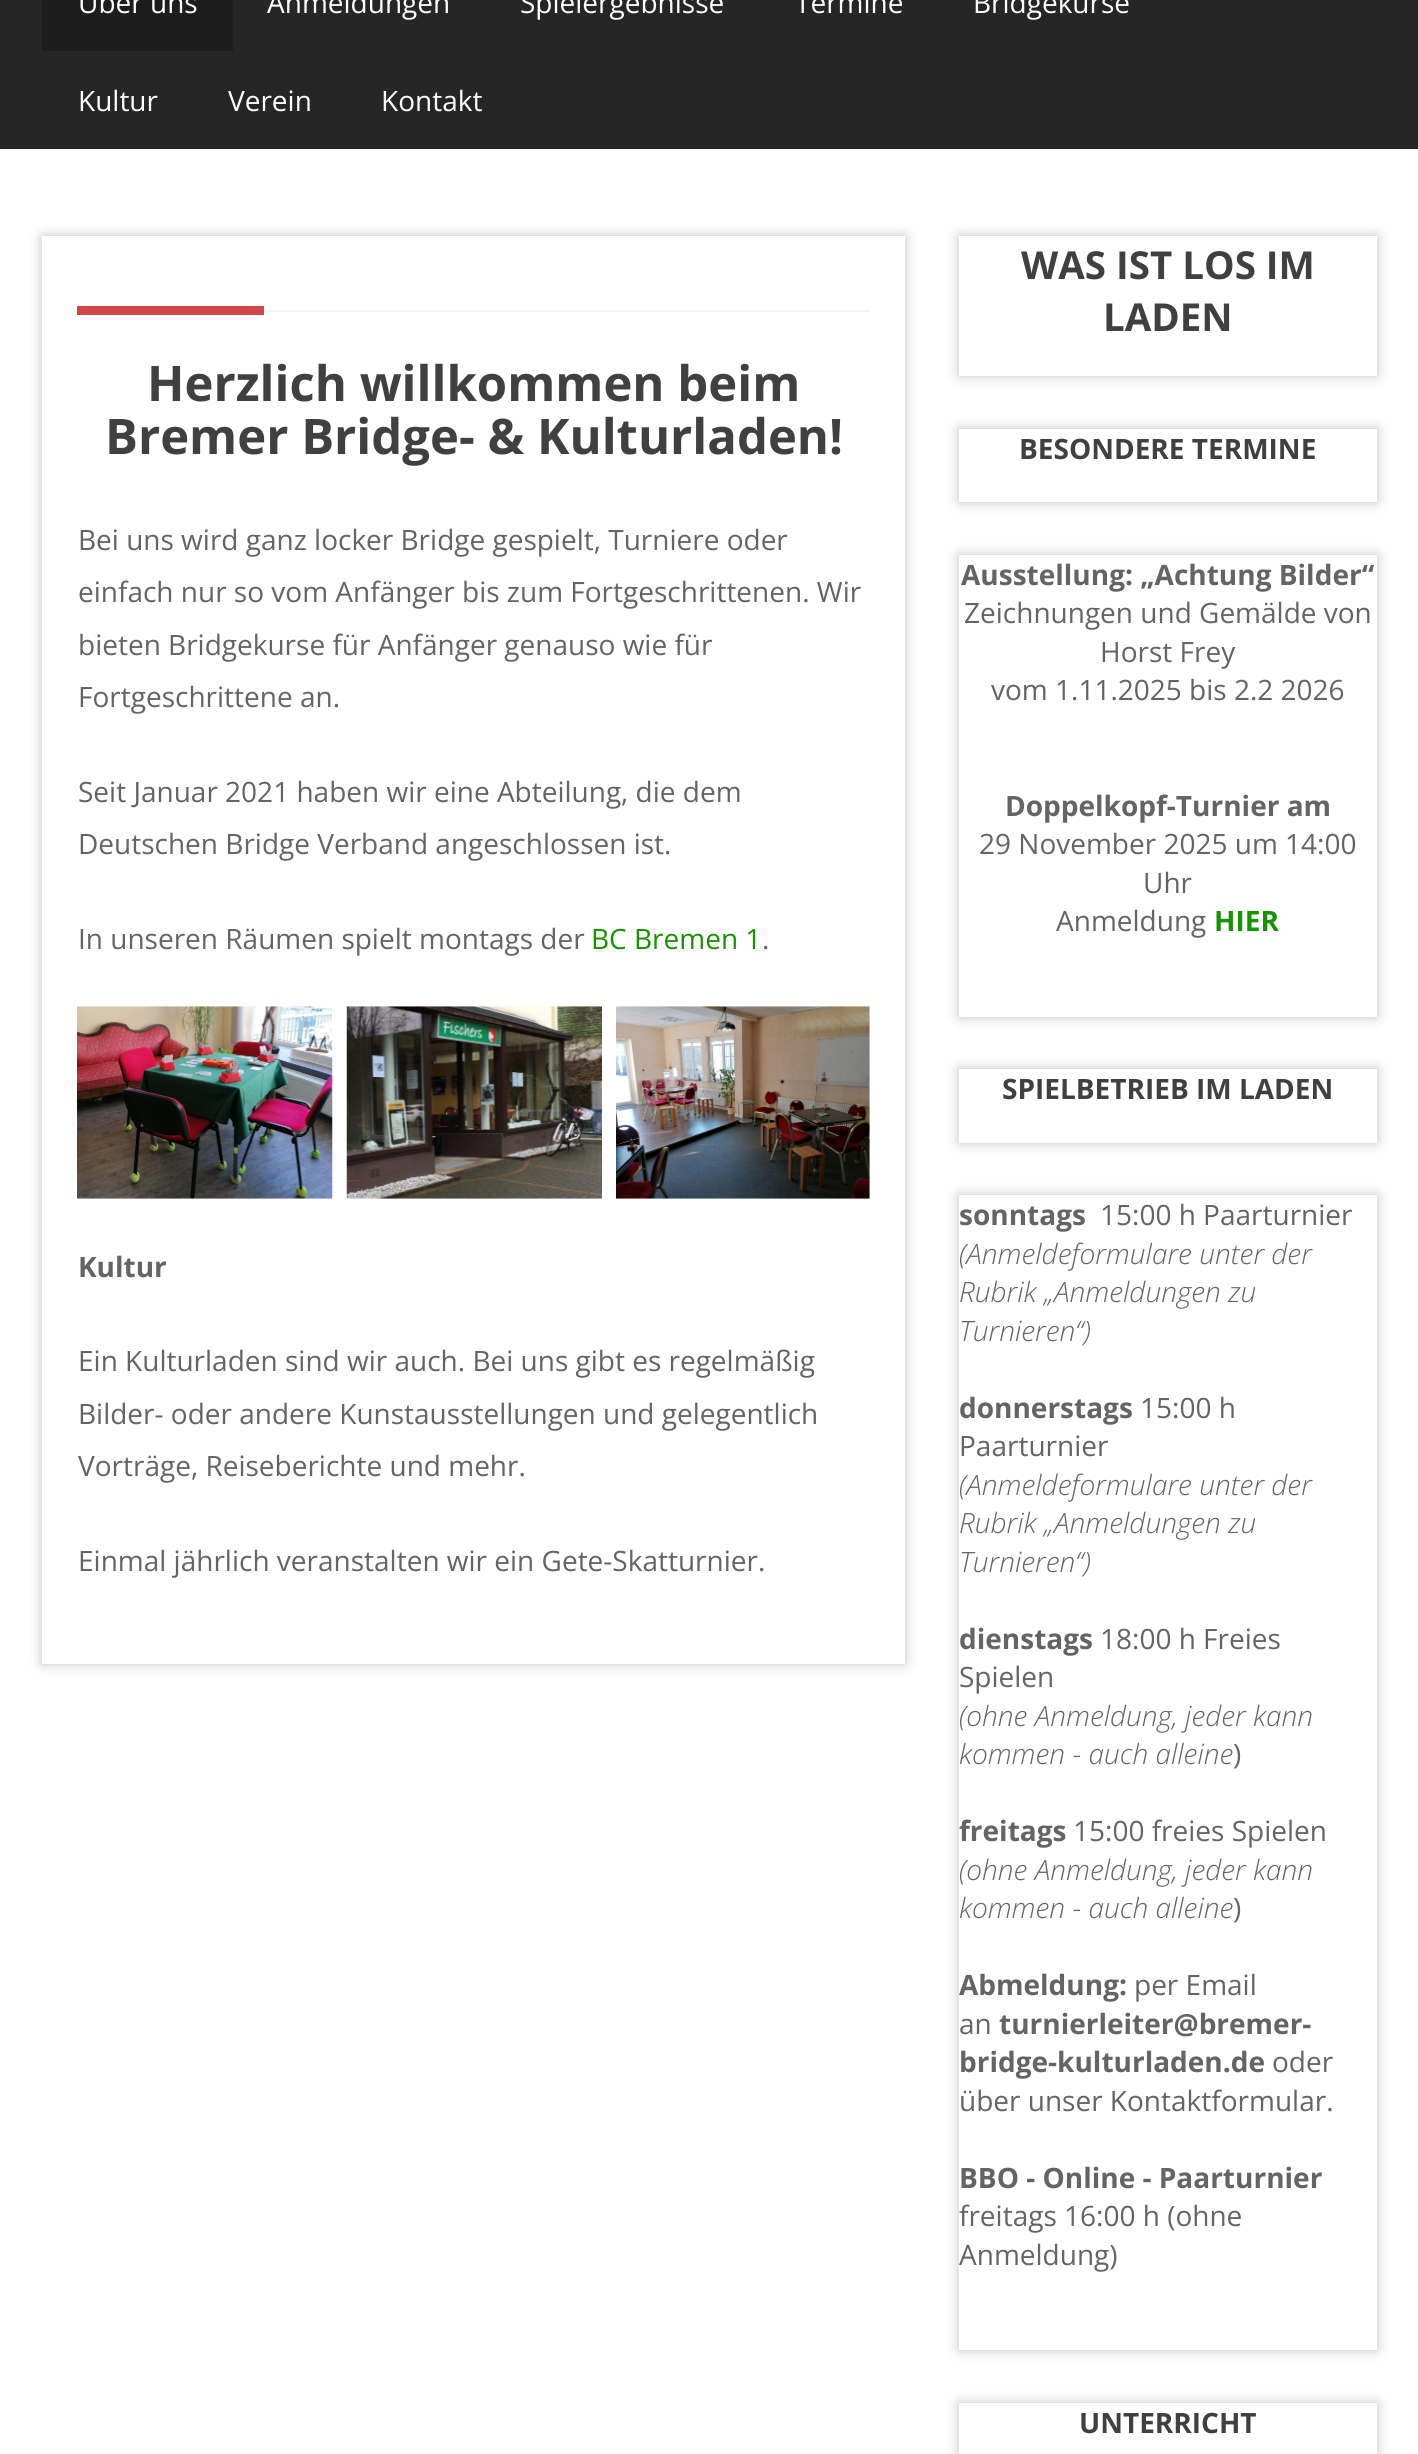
import math
import cairo


def use_color(cr, r, g, b):
  cr.set_source_rgb(r / 255, g / 255, b / 255)

def text(cr, x, y, s, family, size, color, bold=False, italic=False):
  cr.select_font_face(family, cairo.FONT_SLANT_ITALIC if italic else cairo.FONT_SLANT_NORMAL, cairo.FONT_WEIGHT_BOLD if bold else cairo.FONT_WEIGHT_NORMAL)
  cr.set_font_size(size)
  use_color(cr, *color)
  cr.move_to(x, y)
  cr.show_text(s)

def box(cr, x, y, w, h, *color):
  use_color(cr, *color)
  cr.rectangle(x, y, w, h)
  cr.fill()

def round_rect(cr, x, y, w, h, r):
  cr.new_sub_path()
  for i, (u, v) in enumerate([(x + w - r, y + h - r), (x + r, y + h - r), (x + r, y + r), (x + w - r, y + r)]):
    cr.arc(u, v, r, i * math.pi / 2, (i + 1) * math.pi / 2)
  cr.close_path()

def shadow(cr, x, y, w, h, r, blur, alpha):
  cr.push_group_with_content(cairo.CONTENT_ALPHA)
  cr.set_operator(cairo.OPERATOR_SOURCE)
  for i in range(15, -16, -2):
    e = blur * i / 6
    if min(w, h) + 2 * e > 0:
      cr.set_source_rgba(0, 0, 0, alpha * math.erfc((i - 1) / 8.5) / 2)
      round_rect(cr, x - e, y - e, w + 2 * e, h + 2 * e, max(0, min(r + e + blur * .6, min(w, h) / 2 + e)))
      cr.fill()
  cr.mask(cr.pop_group())

def picture(cr, path, x, y, w, h):
  cr.save()
  cr.set_source_surface(cairo.ImageSurface.create_from_png(path), x, y)
  cr.rectangle(x, y, w, h)
  cr.fill()
  cr.restore()

def draw(cr):
  use_color(cr, 255, 255, 255)
  cr.paint()
  box(cr, 0, 0, 1418, 149, 38, 38, 38)
  box(cr, 42, 0, 191, 51, 29, 29, 29)
  use_color(cr, 194, 194, 194)
  shadow(cr, 42, 236, 863, 1428, 0, 6, 1)
  box(cr, 42, 236, 863, 1428, 255, 255, 255)
  box(cr, 77, 306, 187, 9, 209, 71, 71)
  box(cr, 264, 310, 606, 2, 244, 244, 244)
  picture(cr, "img_01.png", 77, 1006, 256, 193)
  picture(cr, "img_02.png", 346, 1006, 256, 193)
  picture(cr, "img_03.png", 616, 1006, 254, 193)
  use_color(cr, 194, 194, 194)
  shadow(cr, 959, 236, 418, 140, 0, 6, 1)
  box(cr, 959, 236, 418, 140, 255, 255, 255)
  cr.save()
  cr.set_fill_rule(cairo.FILL_RULE_EVEN_ODD)
  cr.new_path()
  cr.move_to(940, 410)
  cr.line_to(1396, 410)
  cr.line_to(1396, 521)
  cr.line_to(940, 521)
  cr.close_path()
  cr.move_to(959, 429)
  cr.line_to(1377, 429)
  cr.line_to(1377, 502)
  cr.line_to(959, 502)
  cr.close_path()
  cr.clip()
  use_color(cr, 194, 194, 194)
  shadow(cr, 959, 429, 418, 73, 0, 6, 1)
  cr.restore()
  use_color(cr, 194, 194, 194)
  shadow(cr, 959, 555, 418, 462, 0, 6, 1)
  box(cr, 959, 555, 418, 462, 255, 255, 255)
  use_color(cr, 194, 194, 194)
  shadow(cr, 959, 1069, 418, 74, 0, 6, 1)
  box(cr, 959, 1069, 418, 74, 255, 255, 255)
  use_color(cr, 194, 194, 194)
  shadow(cr, 959, 1195, 418, 1155, 0, 6, 1)
  box(cr, 959, 1195, 418, 1155, 255, 255, 255)
  cr.save()
  cr.set_fill_rule(cairo.FILL_RULE_EVEN_ODD)
  cr.new_path()
  cr.move_to(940, 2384)
  cr.line_to(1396, 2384)
  cr.line_to(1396, 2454)
  cr.line_to(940, 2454)
  cr.close_path()
  cr.move_to(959, 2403)
  cr.line_to(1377, 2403)
  cr.line_to(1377, 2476)
  cr.line_to(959, 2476)
  cr.close_path()
  cr.clip()
  use_color(cr, 194, 194, 194)
  shadow(cr, 959, 2403, 418, 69, 0, 6, 1)
  cr.restore()
  text(cr, 78, 13, "Über uns", "Open Sans", 28, (255, 255, 255))
  text(cr, 267, 13, "Anmeldungen", "Open Sans", 28, (255, 255, 255))
  text(cr, 520, 13, "Spielergebnisse", "Open Sans", 28, (255, 255, 255))
  text(cr, 795, 13, "Termine", "Open Sans", 28, (255, 255, 255))
  text(cr, 973, 13, "Bridgekurse", "Open Sans", 28, (255, 255, 255))
  text(cr, 78, 111, "Kultur", "Open Sans", 28, (255, 255, 255))
  text(cr, 228, 111, "Verein", "Open Sans", 28, (255, 255, 255))
  text(cr, 381, 111, "Kontakt", "Open Sans", 28, (255, 255, 255))
  text(cr, 147, 401, "Herzlich willkommen beim", "Open Sans", 49, (64, 64, 64), bold=True)
  text(cr, 105, 454, "Bremer Bridge- & Kulturladen!", "Open Sans", 49, (64, 64, 64), bold=True)
  text(cr, 78, 550, "Bei uns wird ganz locker Bridge gespielt, Turniere oder", "Open Sans", 28, (100, 100, 100))
  text(cr, 78, 602, "einfach nur so vom Anfänger bis zum Fortgeschrittenen. Wir", "Open Sans", 28, (100, 100, 100))
  text(cr, 78, 655, "bieten Bridgekurse für Anfänger genauso wie für", "Open Sans", 28, (100, 100, 100))
  text(cr, 78, 707, "Fortgeschrittene an.", "Open Sans", 28, (100, 100, 100))
  text(cr, 78, 802, "Seit Januar 2021 haben wir eine Abteilung, die dem", "Open Sans", 28, (100, 100, 100))
  text(cr, 78, 854, "Deutschen Bridge Verband angeschlossen ist.", "Open Sans", 28, (100, 100, 100))
  text(cr, 78, 949, "In unseren Räumen spielt montags der", "Open Sans", 28, (100, 100, 100))
  text(cr, 591, 949, "BC Bremen 1", "Open Sans", 28, (22, 147, 0))
  text(cr, 762, 949, ".", "Open Sans", 28, (100, 100, 100))
  text(cr, 78, 1277, "Kultur", "Open Sans", 28, (100, 100, 100), bold=True)
  text(cr, 78, 1371, "Ein Kulturladen sind wir auch. Bei uns gibt es regelmäßig", "Open Sans", 28, (100, 100, 100))
  text(cr, 78, 1424, "Bilder- oder andere Kunstausstellungen und gelegentlich", "Open Sans", 28, (100, 100, 100))
  text(cr, 78, 1476, "Vorträge, Reiseberichte und mehr.", "Open Sans", 28, (100, 100, 100))
  text(cr, 78, 1571, "Einmal jährlich veranstalten wir ein Gete-Skatturnier.", "Open Sans", 28, (100, 100, 100))
  text(cr, 1021, 279, "WAS IST LOS IM", "Open Sans", 38.5, (64, 64, 64), bold=True)
  text(cr, 1103, 331, "LADEN", "Open Sans", 38.5, (64, 64, 64), bold=True)
  text(cr, 1019, 459, "BESONDERE TERMINE", "Open Sans", 28, (64, 64, 64), bold=True)
  text(cr, 961, 585, "Ausstellung: „Achtung Bilder“", "Open Sans", 28, (100, 100, 100), bold=True)
  text(cr, 964, 623, "Zeichnungen und Gemälde von", "Open Sans", 28, (100, 100, 100))
  text(cr, 1100, 662, "Horst Frey", "Open Sans", 28, (100, 100, 100))
  text(cr, 991, 700, "vom 1.11.2025 bis 2.2 2026", "Open Sans", 28, (100, 100, 100))
  text(cr, 1005, 816, "Doppelkopf-Turnier am", "Open Sans", 28, (100, 100, 100), bold=True)
  text(cr, 979, 854, "29 November 2025 um 14:00", "Open Sans", 28, (100, 100, 100))
  text(cr, 1143, 893, "Uhr", "Open Sans", 28, (100, 100, 100))
  text(cr, 1056, 931, "Anmeldung", "Open Sans", 28, (100, 100, 100))
  text(cr, 1214, 931, "HIER", "Open Sans", 28, (22, 147, 0), bold=True)
  text(cr, 1002, 1099, "SPIELBETRIEB IM LADEN", "Open Sans", 28, (64, 64, 64), bold=True)
  text(cr, 959, 1225, "sonntags", "Open Sans", 28, (100, 100, 100), bold=True)
  text(cr, 1100, 1225, "15:00 h Paarturnier", "Open Sans", 28, (100, 100, 100))
  text(cr, 959, 1264, "(Anmeldeformulare unter der", "Open Sans Light", 28, (100, 100, 100), italic=True)
  text(cr, 959, 1302, "Rubrik „Anmeldungen zu", "Open Sans Light", 28, (100, 100, 100), italic=True)
  text(cr, 959, 1341, "Turnieren“)", "Open Sans Light", 28, (100, 100, 100), italic=True)
  text(cr, 959, 1418, "donnerstags", "Open Sans", 28, (100, 100, 100), bold=True)
  text(cr, 1140, 1418, "15:00 h", "Open Sans", 28, (100, 100, 100))
  text(cr, 959, 1456, "Paarturnier", "Open Sans", 28, (100, 100, 100))
  text(cr, 959, 1495, "(Anmeldeformulare unter der", "Open Sans Light", 28, (100, 100, 100), italic=True)
  text(cr, 959, 1533, "Rubrik „Anmeldungen zu", "Open Sans Light", 28, (100, 100, 100), italic=True)
  text(cr, 959, 1572, "Turnieren“)", "Open Sans Light", 28, (100, 100, 100), italic=True)
  text(cr, 959, 1649, "dienstags", "Open Sans", 28, (100, 100, 100), bold=True)
  text(cr, 1100, 1649, "18:00 h Freies", "Open Sans", 28, (100, 100, 100))
  text(cr, 959, 1687, "Spielen", "Open Sans", 28, (100, 100, 100))
  text(cr, 959, 1726, "(ohne Anmeldung, jeder kann", "Open Sans Light", 28, (100, 100, 100), italic=True)
  text(cr, 959, 1764, "kommen - auch alleine", "Open Sans Light", 28, (100, 100, 100), italic=True)
  text(cr, 1233, 1764, ")", "Open Sans", 28, (100, 100, 100))
  text(cr, 959, 1841, "freitags", "Open Sans", 28, (100, 100, 100), bold=True)
  text(cr, 1073, 1841, "15:00 freies Spielen", "Open Sans", 28, (100, 100, 100))
  text(cr, 959, 1880, "(ohne Anmeldung, jeder kann", "Open Sans Light", 28, (100, 100, 100), italic=True)
  text(cr, 959, 1918, "kommen - auch alleine", "Open Sans Light", 28, (100, 100, 100), italic=True)
  text(cr, 1233, 1918, ")", "Open Sans", 28, (100, 100, 100))
  text(cr, 959, 1995, "Abmeldung:", "Open Sans", 28, (100, 100, 100), bold=True)
  text(cr, 1134, 1995, "per Email", "Open Sans", 28, (100, 100, 100))
  text(cr, 959, 2034, "an", "Open Sans", 28, (100, 100, 100))
  text(cr, 999, 2034, "turnierleiter@bremer-", "Open Sans", 28, (100, 100, 100), bold=True)
  text(cr, 959, 2072, "bridge-kulturladen.de", "Open Sans", 28, (100, 100, 100), bold=True)
  text(cr, 1272, 2072, "oder", "Open Sans", 28, (100, 100, 100))
  text(cr, 959, 2111, "über unser Kontaktformular.", "Open Sans", 28, (100, 100, 100))
  text(cr, 959, 2188, "BBO - Online - Paarturnier", "Open Sans", 28, (100, 100, 100), bold=True)
  text(cr, 959, 2226, "freitags 16:00 h (ohne", "Open Sans", 28, (100, 100, 100))
  text(cr, 959, 2265, "Anmeldung)", "Open Sans", 28, (100, 100, 100))
  text(cr, 1079, 2433, "UNTERRICHT", "Open Sans", 28, (64, 64, 64), bold=True)


surface = cairo.ImageSurface(cairo.FORMAT_RGB24, 1418, 2454)
cr = cairo.Context(surface)
options = cairo.FontOptions()
options.set_hint_metrics(cairo.HINT_METRICS_OFF)
options.set_hint_style(cairo.HINT_STYLE_NONE)
cr.set_font_options(options)
cr.set_miter_limit(4)
draw(cr)
surface.write_to_png("out.png")
